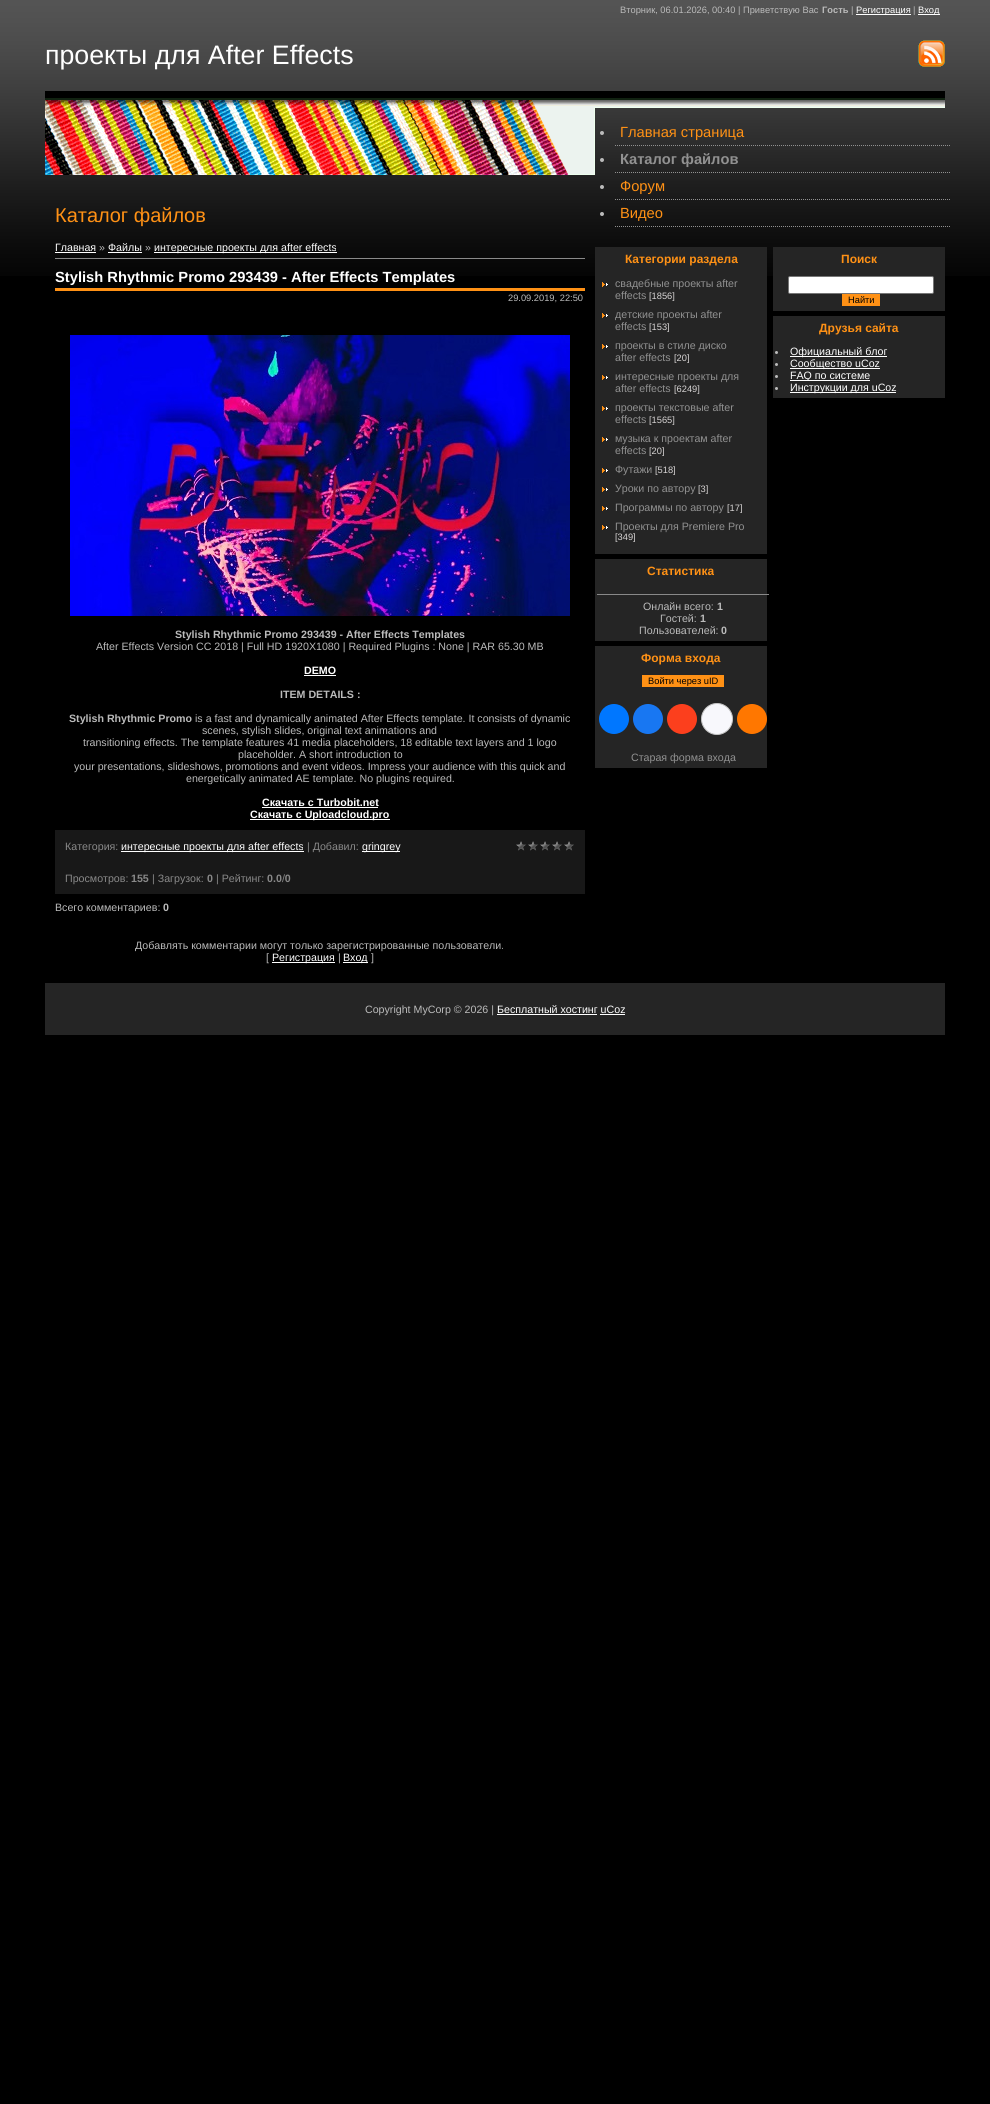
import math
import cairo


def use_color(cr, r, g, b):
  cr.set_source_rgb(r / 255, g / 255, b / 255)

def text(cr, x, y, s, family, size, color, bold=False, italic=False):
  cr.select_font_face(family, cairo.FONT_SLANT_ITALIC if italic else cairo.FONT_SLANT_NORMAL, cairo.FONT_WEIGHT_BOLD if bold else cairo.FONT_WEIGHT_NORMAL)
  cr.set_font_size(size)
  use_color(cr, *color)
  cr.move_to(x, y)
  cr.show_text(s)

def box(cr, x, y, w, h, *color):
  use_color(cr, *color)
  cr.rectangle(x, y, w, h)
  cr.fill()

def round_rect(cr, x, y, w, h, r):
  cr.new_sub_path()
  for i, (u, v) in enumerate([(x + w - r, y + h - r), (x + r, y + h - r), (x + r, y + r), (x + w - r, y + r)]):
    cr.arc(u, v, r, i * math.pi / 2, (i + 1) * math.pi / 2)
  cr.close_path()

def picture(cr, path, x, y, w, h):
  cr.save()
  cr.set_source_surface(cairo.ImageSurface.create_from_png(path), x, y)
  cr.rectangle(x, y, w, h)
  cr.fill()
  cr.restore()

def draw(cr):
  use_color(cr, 0, 0, 0)
  cr.paint()
  picture(cr, "img_01.png", 0, 0, 990, 276)
  box(cr, 856, 14, 55, 1, 255, 255, 255)
  box(cr, 918, 14, 22, 1, 255, 255, 255)
  picture(cr, "img_02.png", 918, 40, 27, 27)
  picture(cr, "img_03.png", 45, 91, 900, 84)
  box(cr, 55, 252, 41, 1, 255, 255, 255)
  box(cr, 108, 252, 34, 1, 255, 255, 255)
  box(cr, 154, 252, 183, 1, 255, 255, 255)
  box(cr, 55, 258, 530, 1, 137, 137, 137)
  box(cr, 55, 288, 530, 3, 255, 145, 21)
  picture(cr, "img_04.png", 70, 335, 500, 281)
  box(cr, 304, 675, 32, 1, 255, 255, 255)
  box(cr, 262, 807, 116, 1, 255, 255, 255)
  box(cr, 250, 819, 140, 1, 255, 255, 255)
  box(cr, 55, 830, 530, 64, 24, 24, 24)
  box(cr, 121, 851, 183, 1, 255, 255, 255)
  box(cr, 362, 851, 38, 1, 255, 255, 255)
  picture(cr, "img_05.png", 516, 841, 58, 10)
  box(cr, 272, 962, 63, 1, 255, 255, 255)
  box(cr, 343, 962, 25, 1, 255, 255, 255)
  cr.new_path()
  cr.move_to(615, 145.5)
  cr.line_to(950, 145.5)
  use_color(cr, 145, 145, 145)
  cr.set_line_width(1)
  cr.set_dash([1, 1])
  cr.stroke()
  use_color(cr, 187, 187, 187)
  cr.arc(602, 133, 2, 0, 2 * math.pi)
  cr.fill()
  cr.new_path()
  cr.move_to(615, 172.5)
  cr.line_to(950, 172.5)
  use_color(cr, 145, 145, 145)
  cr.stroke()
  use_color(cr, 187, 187, 187)
  cr.arc(602, 160, 2, 0, 2 * math.pi)
  cr.fill()
  cr.new_path()
  cr.move_to(615, 199.5)
  cr.line_to(950, 199.5)
  use_color(cr, 145, 145, 145)
  cr.stroke()
  use_color(cr, 187, 187, 187)
  cr.arc(602, 187, 2, 0, 2 * math.pi)
  cr.fill()
  cr.new_path()
  cr.move_to(615, 226.5)
  cr.line_to(950, 226.5)
  use_color(cr, 145, 145, 145)
  cr.stroke()
  use_color(cr, 187, 187, 187)
  cr.arc(602, 214, 2, 0, 2 * math.pi)
  cr.fill()
  box(cr, 595, 247, 172, 307, 37, 37, 37)
  picture(cr, "img_06.png", 602, 282, 6, 5)
  picture(cr, "img_06.png", 602, 313, 6, 5)
  picture(cr, "img_06.png", 602, 344, 6, 5)
  picture(cr, "img_06.png", 602, 375, 6, 5)
  picture(cr, "img_06.png", 602, 406, 6, 5)
  picture(cr, "img_06.png", 602, 437, 6, 5)
  picture(cr, "img_06.png", 602, 468, 6, 5)
  picture(cr, "img_06.png", 602, 487, 6, 5)
  picture(cr, "img_06.png", 602, 506, 6, 5)
  picture(cr, "img_06.png", 602, 525, 6, 5)
  box(cr, 595, 559, 172, 82, 37, 37, 37)
  box(cr, 597, 594, 172, 1, 137, 137, 137)
  box(cr, 595, 646, 172, 122, 37, 37, 37)
  box(cr, 642, 675, 82, 12, 255, 145, 21)
  use_color(cr, 0, 119, 255)
  cr.arc(614, 719, 15, 0, 2 * math.pi)
  cr.fill()
  use_color(cr, 24, 119, 242)
  cr.arc(648, 719, 15, 0, 2 * math.pi)
  cr.fill()
  use_color(cr, 252, 63, 29)
  cr.arc(682, 719, 15, 0, 2 * math.pi)
  cr.fill()
  use_color(cr, 248, 248, 252)
  cr.arc(717, 719, 15.5, 0, 2 * math.pi)
  cr.fill_preserve()
  use_color(cr, 196, 196, 196)
  cr.set_dash([])
  cr.stroke()
  use_color(cr, 255, 119, 0)
  cr.arc(752, 719, 15, 0, 2 * math.pi)
  cr.fill()
  box(cr, 773, 247, 172, 64, 37, 37, 37)
  use_color(cr, 255, 255, 255)
  round_rect(cr, 788.5, 276.5, 145, 17, 1.5)
  cr.fill_preserve()
  use_color(cr, 118, 118, 118)
  cr.stroke()
  box(cr, 842, 294, 38, 12, 255, 145, 21)
  box(cr, 773, 316, 172, 82, 37, 37, 37)
  use_color(cr, 187, 187, 187)
  cr.arc(776.5, 352.5, 1.5, 0, 2 * math.pi)
  cr.fill()
  box(cr, 790, 356, 97, 1, 255, 255, 255)
  use_color(cr, 187, 187, 187)
  cr.arc(776.5, 364.5, 1.5, 0, 2 * math.pi)
  cr.fill()
  box(cr, 790, 368, 90, 1, 255, 255, 255)
  use_color(cr, 187, 187, 187)
  cr.arc(776.5, 376.5, 1.5, 0, 2 * math.pi)
  cr.fill()
  box(cr, 790, 380, 80, 1, 255, 255, 255)
  use_color(cr, 187, 187, 187)
  cr.arc(776.5, 388.5, 1.5, 0, 2 * math.pi)
  cr.fill()
  box(cr, 790, 392, 106, 1, 255, 255, 255)
  box(cr, 45, 983, 900, 52, 37, 37, 37)
  box(cr, 497, 1014, 100, 1, 255, 255, 255)
  box(cr, 600, 1014, 25, 1, 255, 255, 255)
  text(cr, 620, 13, "Вторник, 06.01.2026, 00:40 | Приветствую Вас", "Liberation Sans", 9.3, (187, 187, 187))
  text(cr, 822, 13, "Гость", "Liberation Sans", 9.3, (187, 187, 187), bold=True)
  text(cr, 851, 13, "|", "Liberation Sans", 9.3, (187, 187, 187))
  text(cr, 856, 13, "Регистрация", "Liberation Sans", 9.3, (255, 255, 255))
  text(cr, 913, 13, "|", "Liberation Sans", 9.3, (187, 187, 187))
  text(cr, 918, 13, "Вход", "Liberation Sans", 9.3, (255, 255, 255))
  text(cr, 45, 64, "проекты для After Effects", "Liberation Sans", 26.75, (255, 255, 255))
  text(cr, 55, 222, "Каталог файлов", "Liberation Sans", 20, (255, 145, 21))
  text(cr, 55, 251, "Главная", "Liberation Sans", 10.65, (255, 255, 255))
  text(cr, 99, 251, "»", "Liberation Sans", 10.65, (187, 187, 187))
  text(cr, 108, 251, "Файлы", "Liberation Sans", 10.65, (255, 255, 255))
  text(cr, 145, 251, "»", "Liberation Sans", 10.65, (187, 187, 187))
  text(cr, 154, 251, "интересные проекты для after effects", "Liberation Sans", 10.65, (255, 255, 255))
  text(cr, 55, 282, "Stylish Rhythmic Promo 293439 - After Effects Templates", "Liberation Sans", 14.7, (255, 255, 255), bold=True)
  text(cr, 508, 301, "29.09.2019, 22:50", "Liberation Sans", 9.3, (187, 187, 187))
  text(cr, 175, 638, "Stylish Rhythmic Promo 293439 - After Effects Templates", "Liberation Sans", 10.65, (187, 187, 187), bold=True)
  text(cr, 96, 650, "After Effects Version CC 2018 | Full HD 1920X1080 | Required Plugins : None | RAR 65.30 MB", "Liberation Sans", 10.65, (187, 187, 187))
  text(cr, 304, 674, "DEMO", "Liberation Sans", 10.65, (255, 255, 255), bold=True)
  text(cr, 280, 698, "ITEM DETAILS :", "Liberation Sans", 10.65, (187, 187, 187), bold=True)
  text(cr, 69, 722, "Stylish Rhythmic Promo", "Liberation Sans", 10.65, (187, 187, 187), bold=True)
  text(cr, 195, 722, "is a fast and dynamically animated After Effects template. It consists of dynamic", "Liberation Sans", 10.65, (187, 187, 187))
  text(cr, 202, 734, "scenes, stylish slides, original text animations and", "Liberation Sans", 10.65, (187, 187, 187))
  text(cr, 83, 746, "transitioning effects. The template features 41 media placeholders, 18 editable text layers and 1 logo", "Liberation Sans", 10.65, (187, 187, 187))
  text(cr, 238, 758, "placeholder. A short introduction to", "Liberation Sans", 10.65, (187, 187, 187))
  text(cr, 74, 770, "your presentations, slideshows, promotions and event videos. Impress your audience with this quick and", "Liberation Sans", 10.65, (187, 187, 187))
  text(cr, 186, 782, "energetically animated AE template. No plugins required.", "Liberation Sans", 10.65, (187, 187, 187))
  text(cr, 262, 806, "Скачать с Turbobit.net", "Liberation Sans", 10.65, (255, 255, 255), bold=True)
  text(cr, 250, 818, "Скачать с Uploadcloud.pro", "Liberation Sans", 10.65, (255, 255, 255), bold=True)
  text(cr, 65, 850, "Категория:", "Liberation Sans", 10.65, (137, 137, 137))
  text(cr, 121, 850, "интересные проекты для after effects", "Liberation Sans", 10.65, (255, 255, 255))
  text(cr, 307, 850, "| Добавил:", "Liberation Sans", 10.65, (137, 137, 137))
  text(cr, 362, 850, "gringrey", "Liberation Sans", 10.65, (255, 255, 255))
  text(cr, 65, 882, "Просмотров:", "Liberation Sans", 10.65, (137, 137, 137))
  text(cr, 131, 882, "155", "Liberation Sans", 10.65, (137, 137, 137), bold=True)
  text(cr, 152, 882, "| Загрузок:", "Liberation Sans", 10.65, (137, 137, 137))
  text(cr, 207, 882, "0", "Liberation Sans", 10.65, (137, 137, 137), bold=True)
  text(cr, 216, 882, "| Рейтинг:", "Liberation Sans", 10.65, (137, 137, 137))
  text(cr, 267, 882, "0.0 0", "Liberation Sans", 10.65, (137, 137, 137), bold=True)
  text(cr, 282, 882, "/", "Liberation Sans", 10.65, (137, 137, 137))
  text(cr, 55, 911, "Всего комментариев:", "Liberation Sans", 10.65, (187, 187, 187))
  text(cr, 163, 911, "0", "Liberation Sans", 10.65, (187, 187, 187), bold=True)
  text(cr, 135, 949, "Добавлять комментарии могут только зарегистрированные пользователи.", "Liberation Sans", 10.65, (187, 187, 187))
  text(cr, 266, 961, "[", "Liberation Sans", 10.65, (187, 187, 187))
  text(cr, 272, 961, "Регистрация", "Liberation Sans", 10.65, (255, 255, 255))
  text(cr, 338, 961, "|", "Liberation Sans", 10.65, (187, 187, 187))
  text(cr, 343, 961, "Вход", "Liberation Sans", 10.65, (255, 255, 255))
  text(cr, 371, 961, "]", "Liberation Sans", 10.65, (187, 187, 187))
  text(cr, 620, 137, "Главная страница", "Liberation Sans", 14.7, (255, 145, 21))
  text(cr, 620, 164, "Каталог файлов", "Liberation Sans", 14.7, (145, 145, 145), bold=True)
  text(cr, 620, 191, "Форум", "Liberation Sans", 14.7, (255, 145, 21))
  text(cr, 620, 218, "Видео", "Liberation Sans", 14.7, (255, 145, 21))
  text(cr, 625, 263, "Категории раздела", "Liberation Sans", 12, (255, 145, 21), bold=True)
  text(cr, 615, 287, "свадебные проекты after", "Liberation Sans", 10.65, (145, 145, 145))
  text(cr, 615, 299, "effects", "Liberation Sans", 10.65, (145, 145, 145))
  text(cr, 649, 299, "[1856]", "Liberation Sans", 9.3, (216, 213, 213))
  text(cr, 615, 318, "детские проекты after", "Liberation Sans", 10.65, (145, 145, 145))
  text(cr, 615, 330, "effects", "Liberation Sans", 10.65, (145, 145, 145))
  text(cr, 649, 330, "[153]", "Liberation Sans", 9.3, (216, 213, 213))
  text(cr, 615, 349, "проекты в стиле диско", "Liberation Sans", 10.65, (145, 145, 145))
  text(cr, 615, 361, "after effects", "Liberation Sans", 10.65, (145, 145, 145))
  text(cr, 674, 361, "[20]", "Liberation Sans", 9.3, (216, 213, 213))
  text(cr, 615, 380, "интересные проекты для", "Liberation Sans", 10.65, (145, 145, 145))
  text(cr, 615, 392, "after effects", "Liberation Sans", 10.65, (145, 145, 145))
  text(cr, 674, 392, "[6249]", "Liberation Sans", 9.3, (216, 213, 213))
  text(cr, 615, 411, "проекты текстовые after", "Liberation Sans", 10.65, (145, 145, 145))
  text(cr, 615, 423, "effects", "Liberation Sans", 10.65, (145, 145, 145))
  text(cr, 649, 423, "[1565]", "Liberation Sans", 9.3, (216, 213, 213))
  text(cr, 615, 442, "музыка к проектам after", "Liberation Sans", 10.65, (145, 145, 145))
  text(cr, 615, 454, "effects", "Liberation Sans", 10.65, (145, 145, 145))
  text(cr, 649, 454, "[20]", "Liberation Sans", 9.3, (216, 213, 213))
  text(cr, 615, 473, "Футажи", "Liberation Sans", 10.65, (145, 145, 145))
  text(cr, 655, 473, "[518]", "Liberation Sans", 9.3, (216, 213, 213))
  text(cr, 615, 492, "Уроки по автору", "Liberation Sans", 10.65, (145, 145, 145))
  text(cr, 698, 492, "[3]", "Liberation Sans", 9.3, (216, 213, 213))
  text(cr, 615, 511, "Программы по автору", "Liberation Sans", 10.65, (145, 145, 145))
  text(cr, 727, 511, "[17]", "Liberation Sans", 9.3, (216, 213, 213))
  text(cr, 615, 530, "Проекты для Premiere Pro", "Liberation Sans", 10.65, (145, 145, 145))
  text(cr, 615, 540, "[349]", "Liberation Sans", 9.3, (216, 213, 213))
  text(cr, 647, 575, "Статистика", "Liberation Sans", 12, (255, 145, 21), bold=True)
  text(cr, 643, 610, "Онлайн всего:", "Liberation Sans", 10.65, (187, 187, 187))
  text(cr, 717, 610, "1", "Liberation Sans", 10.65, (187, 187, 187), bold=True)
  text(cr, 660, 622, "Гостей:", "Liberation Sans", 10.65, (187, 187, 187))
  text(cr, 700, 622, "1", "Liberation Sans", 10.65, (187, 187, 187), bold=True)
  text(cr, 639, 634, "Пользователей:", "Liberation Sans", 10.65, (187, 187, 187))
  text(cr, 721, 634, "0", "Liberation Sans", 10.65, (187, 187, 187), bold=True)
  text(cr, 641, 662, "Форма входа", "Liberation Sans", 12, (255, 145, 21), bold=True)
  text(cr, 648, 684, "Войти через uID", "Liberation Sans", 9.3, (0, 0, 0))
  text(cr, 631, 761, "Старая форма входа", "Liberation Sans", 10.65, (145, 145, 145))
  text(cr, 841, 263, "Поиск", "Liberation Sans", 12, (255, 145, 21), bold=True)
  text(cr, 848, 303, "Найти", "Liberation Sans", 9.3, (0, 0, 0))
  text(cr, 819, 332, "Друзья сайта", "Liberation Sans", 12, (255, 145, 21), bold=True)
  text(cr, 790, 355, "Официальный блог", "Liberation Sans", 10.65, (255, 255, 255))
  text(cr, 790, 367, "Сообщество uCoz", "Liberation Sans", 10.65, (255, 255, 255))
  text(cr, 790, 379, "FAQ по системе", "Liberation Sans", 10.65, (255, 255, 255))
  text(cr, 790, 391, "Инструкции для uCoz", "Liberation Sans", 10.65, (255, 255, 255))
  text(cr, 365, 1013, "Copyright MyCorp © 2026 |", "Liberation Sans", 10.65, (187, 187, 187))
  text(cr, 497, 1013, "Бесплатный хостинг uCoz", "Liberation Sans", 10.65, (255, 255, 255))


surface = cairo.ImageSurface(cairo.FORMAT_RGB24, 990, 2104)
cr = cairo.Context(surface)
options = cairo.FontOptions()
options.set_hint_metrics(cairo.HINT_METRICS_OFF)
options.set_hint_style(cairo.HINT_STYLE_NONE)
cr.set_font_options(options)
cr.set_miter_limit(4)
draw(cr)
surface.write_to_png("out.png")
